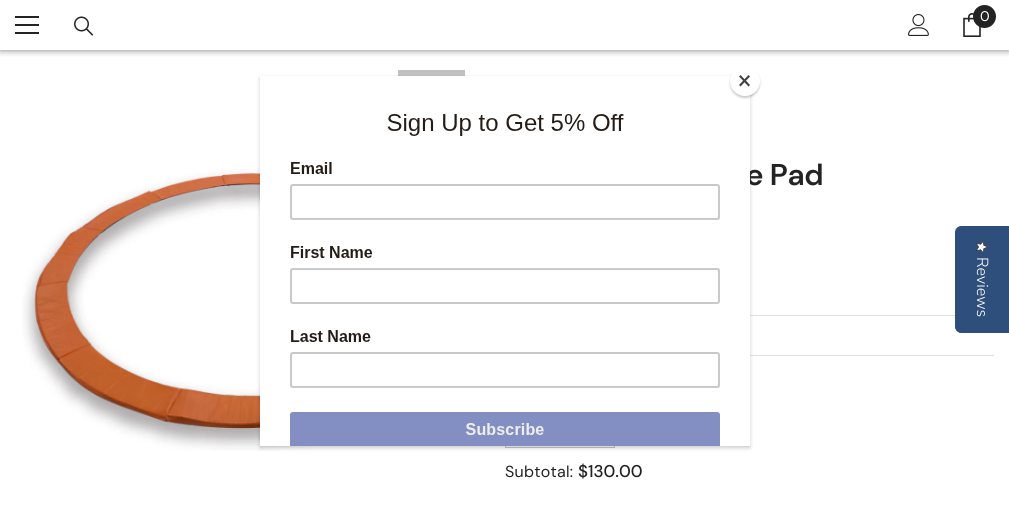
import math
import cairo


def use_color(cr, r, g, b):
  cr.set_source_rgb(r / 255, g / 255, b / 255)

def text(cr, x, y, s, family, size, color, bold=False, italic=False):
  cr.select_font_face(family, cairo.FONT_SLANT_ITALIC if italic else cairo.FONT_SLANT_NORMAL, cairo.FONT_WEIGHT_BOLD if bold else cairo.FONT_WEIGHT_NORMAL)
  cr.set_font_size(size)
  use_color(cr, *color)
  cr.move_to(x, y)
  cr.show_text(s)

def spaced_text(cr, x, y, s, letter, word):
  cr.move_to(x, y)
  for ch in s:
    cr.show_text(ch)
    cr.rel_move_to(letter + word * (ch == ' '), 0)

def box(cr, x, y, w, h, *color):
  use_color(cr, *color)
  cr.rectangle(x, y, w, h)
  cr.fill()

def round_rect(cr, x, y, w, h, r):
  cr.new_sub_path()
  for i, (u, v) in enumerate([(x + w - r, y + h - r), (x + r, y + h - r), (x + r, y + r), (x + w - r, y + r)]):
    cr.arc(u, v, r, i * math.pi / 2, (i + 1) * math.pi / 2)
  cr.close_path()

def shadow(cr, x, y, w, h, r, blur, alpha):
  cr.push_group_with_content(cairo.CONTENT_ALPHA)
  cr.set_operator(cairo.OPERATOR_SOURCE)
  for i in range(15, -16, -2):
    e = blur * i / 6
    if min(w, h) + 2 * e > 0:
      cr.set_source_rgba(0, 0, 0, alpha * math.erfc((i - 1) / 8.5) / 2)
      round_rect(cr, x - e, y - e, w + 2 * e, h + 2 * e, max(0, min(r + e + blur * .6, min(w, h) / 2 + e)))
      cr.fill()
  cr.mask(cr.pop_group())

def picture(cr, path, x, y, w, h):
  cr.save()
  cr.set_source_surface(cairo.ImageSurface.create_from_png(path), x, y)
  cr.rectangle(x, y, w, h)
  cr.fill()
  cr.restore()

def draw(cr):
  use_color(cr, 255, 255, 255)
  cr.paint()
  cr.save()
  cr.rectangle(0, 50, 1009, 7)
  cr.clip()
  use_color(cr, 0, 0, 0)
  shadow(cr, 0, 2, 1009, 50, 0, 5, 0.12)
  cr.restore()
  cr.save()
  cr.rectangle(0, 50, 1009, 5)
  cr.clip()
  use_color(cr, 0, 0, 0)
  shadow(cr, 0, 2, 1009, 50, 0, 2.5, 0.16)
  cr.restore()
  cr.save()
  cr.rectangle(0, 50, 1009, 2)
  cr.clip()
  use_color(cr, 0, 0, 0)
  shadow(cr, 0, 1, 1009, 50, 0, 1.5, 0.1)
  cr.restore()
  box(cr, 15, 24, 24, 2, 35, 35, 35)
  box(cr, 15, 16, 24, 2, 35, 35, 35)
  box(cr, 15, 32, 24, 2, 35, 35, 35)
  picture(cr, "img_01.png", 74, 16, 20, 20)
  picture(cr, "img_02.png", 908, 14, 21, 22)
  picture(cr, "img_03.png", 963, 13, 18, 24)
  cr.arc(984.5, 16.5, 11.5, 0, 2 * math.pi)
  cr.fill()
  box(cr, 398, 70, 67, 6, 193, 193, 193)
  picture(cr, "img_04.png", 22, 169, 443, 282)
  box(cr, 750, 315, 205, 1, 223, 223, 223)
  box(cr, 750, 355, 244, 1, 223, 223, 223)
  cr.rectangle(505.5, 401.5, 109, 46)
  use_color(cr, 199, 199, 199)
  cr.set_line_width(1)
  cr.stroke()
  use_color(cr, 0, 0, 0)
  shadow(cr, 260, 78, 490, 370, 0, 2, 0.2)
  use_color(cr, 46, 79, 124)
  cr.new_path()
  cr.move_to(1009, 226)
  cr.line_to(1009, 333)
  cr.line_to(961, 333)
  cr.curve_to(958, 333, 955, 330, 955, 327)
  cr.line_to(955, 232)
  cr.curve_to(955, 229, 958, 226, 961, 226)
  cr.close_path()
  cr.fill()
  picture(cr, "img_06.png", 976, 241, 12, 12)
  text(cr, 980, 21, "0", "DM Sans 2", 14, (255, 255, 255))
  text(cr, 746, 185, "e Pad", "DM Sans SemiBold", 30, (35, 35, 35))
  cr.select_font_face("DM Sans")
  cr.set_font_size(16)
  spaced_text(cr, 505, 477, "Subtotal:", 0.25, 0)
  text(cr, 578, 477, "$130.00", "DM Sans Medium", 17, (35, 35, 35))
  picture(cr, "img_05.png", 260, 76, 490, 370)
  use_color(cr, 0, 0, 0)
  shadow(cr, 730, 68, 30, 30, 15, 1, 0.2)
  use_color(cr, 255, 255, 255)
  cr.arc(745, 81, 15, 0, 2 * math.pi)
  cr.fill()
  use_color(cr, 65, 65, 65)
  cr.new_path()
  cr.move_to(748.5, 75)
  cr.line_to(750, 76.5)
  cr.line_to(740.5, 86.5)
  cr.line_to(739, 85)
  cr.close_path()
  cr.fill()
  cr.new_path()
  cr.move_to(739, 76.5)
  cr.line_to(740.5, 75)
  cr.line_to(750, 85)
  cr.line_to(748.5, 86.5)
  cr.close_path()
  cr.fill()
  cr.save()
  cr.translate(977, 257)
  cr.rotate(90 * math.pi / 180)
  text(cr, 0, 0, "Reviews", "Nunito Sans Light", 16, (255, 255, 255))
  cr.restore()


surface = cairo.ImageSurface(cairo.FORMAT_RGB24, 1009, 506)
cr = cairo.Context(surface)
options = cairo.FontOptions()
options.set_hint_metrics(cairo.HINT_METRICS_OFF)
options.set_hint_style(cairo.HINT_STYLE_NONE)
cr.set_font_options(options)
cr.set_miter_limit(4)
draw(cr)
surface.write_to_png("out.png")
